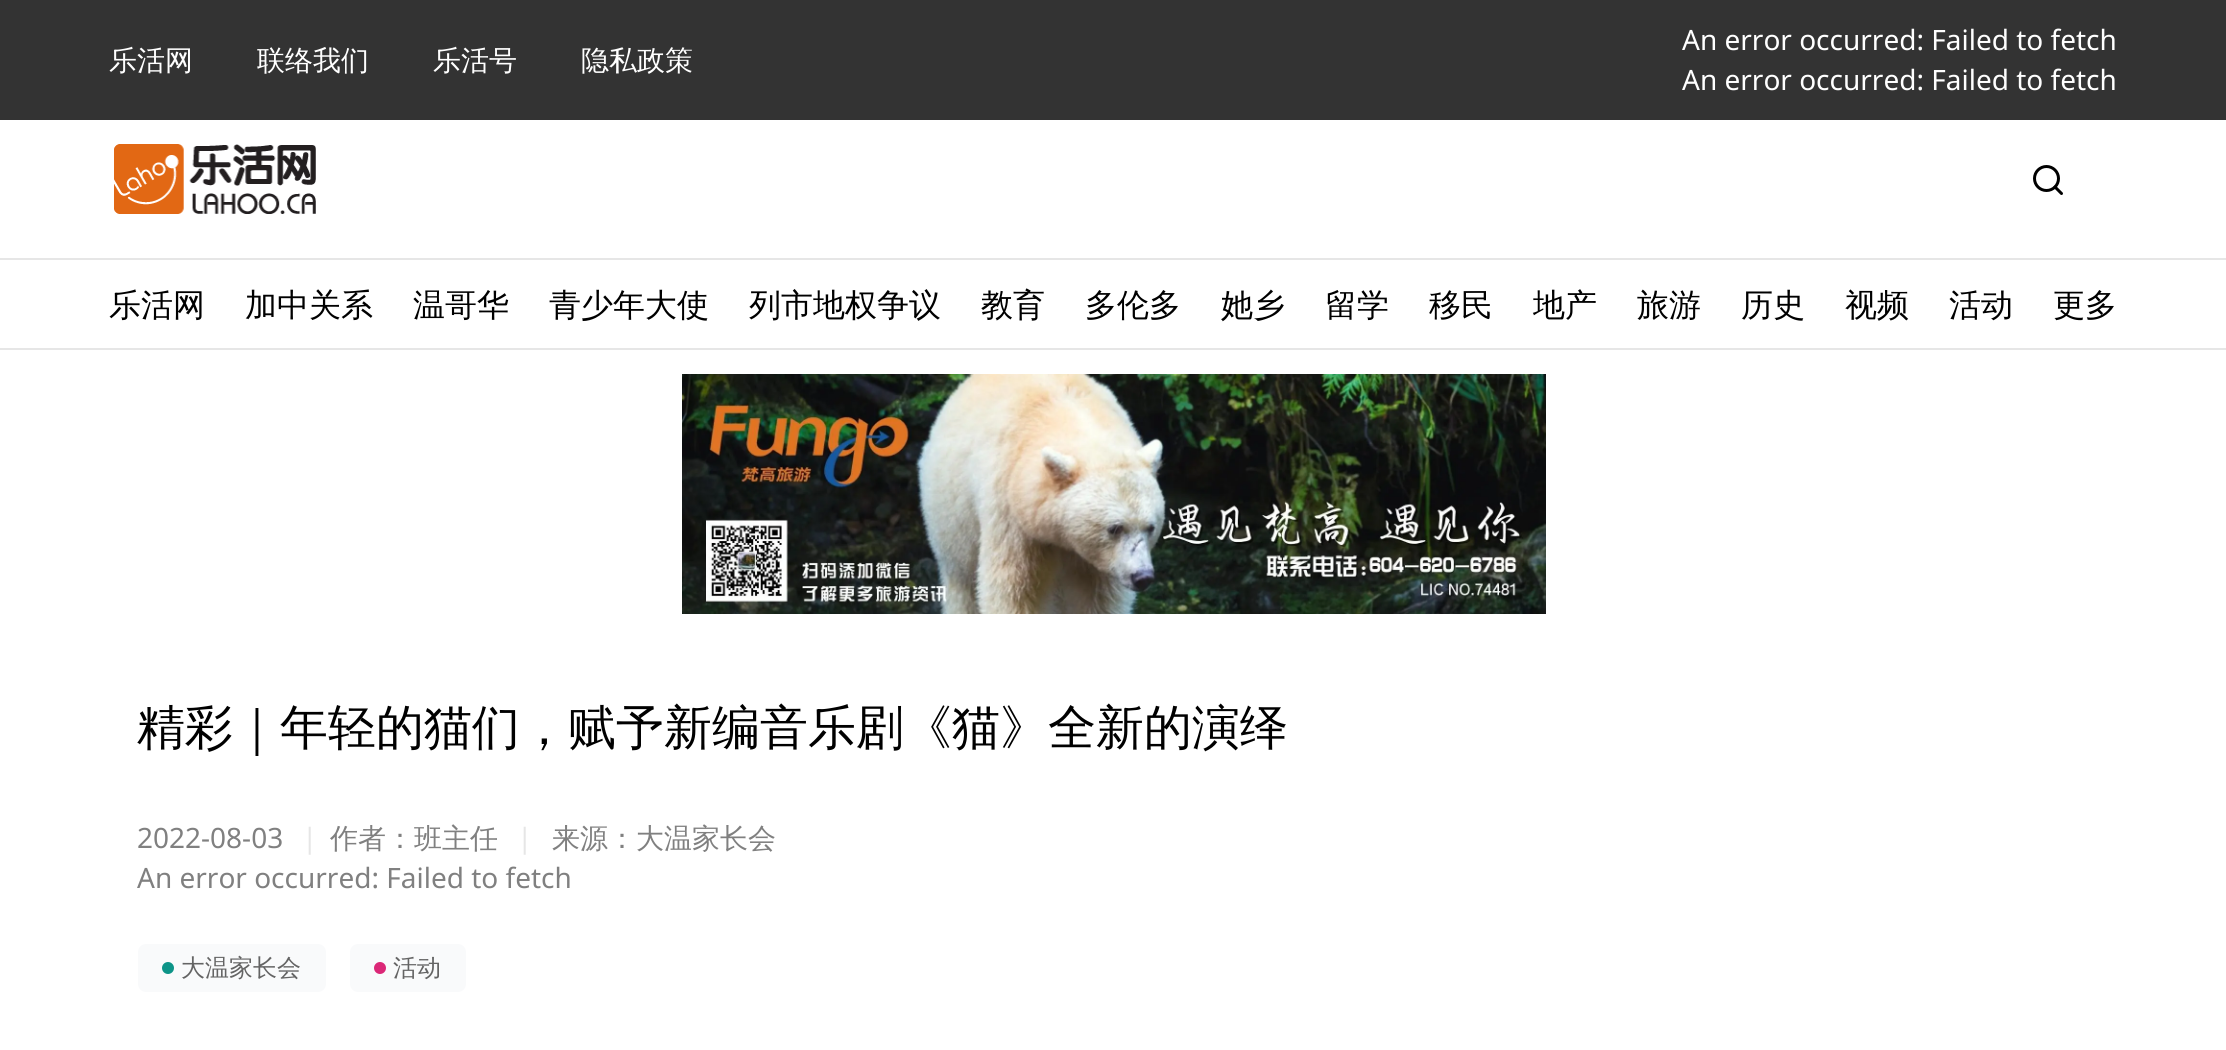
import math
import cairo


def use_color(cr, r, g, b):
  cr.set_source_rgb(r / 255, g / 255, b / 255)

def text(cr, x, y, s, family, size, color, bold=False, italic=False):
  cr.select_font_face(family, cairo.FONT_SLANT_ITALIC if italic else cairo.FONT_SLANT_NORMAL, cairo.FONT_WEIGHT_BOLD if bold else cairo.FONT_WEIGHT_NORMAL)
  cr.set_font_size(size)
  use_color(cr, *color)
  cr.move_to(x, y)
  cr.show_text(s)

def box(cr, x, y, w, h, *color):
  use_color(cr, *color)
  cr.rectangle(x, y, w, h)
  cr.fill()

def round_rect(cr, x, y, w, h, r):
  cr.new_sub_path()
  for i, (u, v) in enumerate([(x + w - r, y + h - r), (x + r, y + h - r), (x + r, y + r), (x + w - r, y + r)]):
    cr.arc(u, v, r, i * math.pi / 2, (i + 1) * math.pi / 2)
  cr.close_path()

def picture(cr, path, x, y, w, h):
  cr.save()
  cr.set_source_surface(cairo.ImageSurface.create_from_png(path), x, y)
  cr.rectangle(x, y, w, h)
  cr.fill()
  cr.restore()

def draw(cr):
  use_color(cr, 255, 255, 255)
  cr.paint()
  box(cr, 0, 0, 2226, 120, 51, 51, 51)
  picture(cr, "img_01.png", 114, 144, 202, 70)
  cr.arc(2046.5, 178.5, 12, 0, 2 * math.pi)
  use_color(cr, 0, 0, 0)
  cr.set_line_width(3)
  cr.stroke()
  cr.new_path()
  cr.move_to(2061.5, 193.5)
  cr.line_to(2055, 187)
  cr.set_line_cap(cairo.LINE_CAP_ROUND)
  cr.set_line_join(cairo.LINE_JOIN_ROUND)
  cr.stroke()
  box(cr, 0, 258, 2226, 2, 230, 230, 230)
  box(cr, 0, 348, 2226, 2, 230, 230, 230)
  picture(cr, "img_02.png", 682, 374, 864, 240)
  use_color(cr, 249, 250, 251)
  round_rect(cr, 138, 944, 188, 48, 8)
  cr.fill()
  use_color(cr, 13, 148, 136)
  cr.arc(168, 968, 6, 0, 2 * math.pi)
  cr.fill()
  use_color(cr, 249, 250, 251)
  round_rect(cr, 350, 944, 116, 48, 8)
  cr.fill()
  use_color(cr, 219, 39, 119)
  cr.arc(380, 968, 6, 0, 2 * math.pi)
  cr.fill()
  text(cr, 109, 70, "乐活网", "WenQuanYi Zen Hei Medium", 28, (255, 255, 255))
  text(cr, 257, 70, "联络我们", "WenQuanYi Zen Hei Medium", 28, (255, 255, 255))
  text(cr, 433, 70, "乐活号", "WenQuanYi Zen Hei Medium", 28, (255, 255, 255))
  text(cr, 581, 70, "隐私政策", "WenQuanYi Zen Hei Medium", 28, (255, 255, 255))
  text(cr, 1682, 50, "An error occurred: Failed to fetch", "Noto Sans", 28, (255, 255, 255))
  text(cr, 1682, 90, "An error occurred: Failed to fetch", "Noto Sans", 28, (255, 255, 255))
  text(cr, 109, 316, "乐活网", "WenQuanYi Zen Hei Medium", 32, (0, 0, 0))
  text(cr, 245, 316, "加中关系", "WenQuanYi Zen Hei Medium", 32, (0, 0, 0))
  text(cr, 413, 316, "温哥华", "WenQuanYi Zen Hei Medium", 32, (0, 0, 0))
  text(cr, 549, 316, "青少年大使", "WenQuanYi Zen Hei Medium", 32, (0, 0, 0))
  text(cr, 749, 316, "列市地权争议", "WenQuanYi Zen Hei Medium", 32, (0, 0, 0))
  text(cr, 981, 316, "教育", "WenQuanYi Zen Hei Medium", 32, (0, 0, 0))
  text(cr, 1085, 316, "多伦多", "WenQuanYi Zen Hei Medium", 32, (0, 0, 0))
  text(cr, 1221, 316, "她乡", "WenQuanYi Zen Hei Medium", 32, (0, 0, 0))
  text(cr, 1325, 316, "留学", "WenQuanYi Zen Hei Medium", 32, (0, 0, 0))
  text(cr, 1429, 316, "移民", "WenQuanYi Zen Hei Medium", 32, (0, 0, 0))
  text(cr, 1533, 316, "地产", "WenQuanYi Zen Hei Medium", 32, (0, 0, 0))
  text(cr, 1637, 316, "旅游", "WenQuanYi Zen Hei Medium", 32, (0, 0, 0))
  text(cr, 1741, 316, "历史", "WenQuanYi Zen Hei Medium", 32, (0, 0, 0))
  text(cr, 1845, 316, "视频", "WenQuanYi Zen Hei Medium", 32, (0, 0, 0))
  text(cr, 1949, 316, "活动", "WenQuanYi Zen Hei Medium", 32, (0, 0, 0))
  text(cr, 2053, 316, "更多", "WenQuanYi Zen Hei Medium", 32, (0, 0, 0))
  text(cr, 137, 744, "精彩｜年轻的猫们，赋予新编音乐剧《猫》全新的演绎", "WenQuanYi Zen Hei Medium", 48, (0, 0, 0))
  text(cr, 137, 848, "2022-08-03", "Noto Sans", 28, (128, 128, 128))
  text(cr, 302, 848, "|", "Noto Sans", 28, (230, 230, 230))
  text(cr, 330, 848, "作者：班主任", "WenQuanYi Zen Hei Medium", 28, (128, 128, 128))
  text(cr, 517, 848, "|", "Noto Sans", 28, (230, 230, 230))
  text(cr, 552, 848, "来源：大温家长会", "WenQuanYi Zen Hei Medium", 28, (128, 128, 128))
  text(cr, 137, 888, "An error occurred: Failed to fetch", "Noto Sans", 28, (128, 128, 128))
  text(cr, 181, 976, "大温家长会", "WenQuanYi Zen Hei Medium", 24, (100, 100, 100))
  text(cr, 393, 976, "活动", "WenQuanYi Zen Hei Medium", 24, (100, 100, 100))


surface = cairo.ImageSurface(cairo.FORMAT_RGB24, 2226, 1050)
cr = cairo.Context(surface)
options = cairo.FontOptions()
options.set_hint_metrics(cairo.HINT_METRICS_OFF)
options.set_hint_style(cairo.HINT_STYLE_NONE)
cr.set_font_options(options)
cr.set_miter_limit(4)
draw(cr)
surface.write_to_png("out.png")
